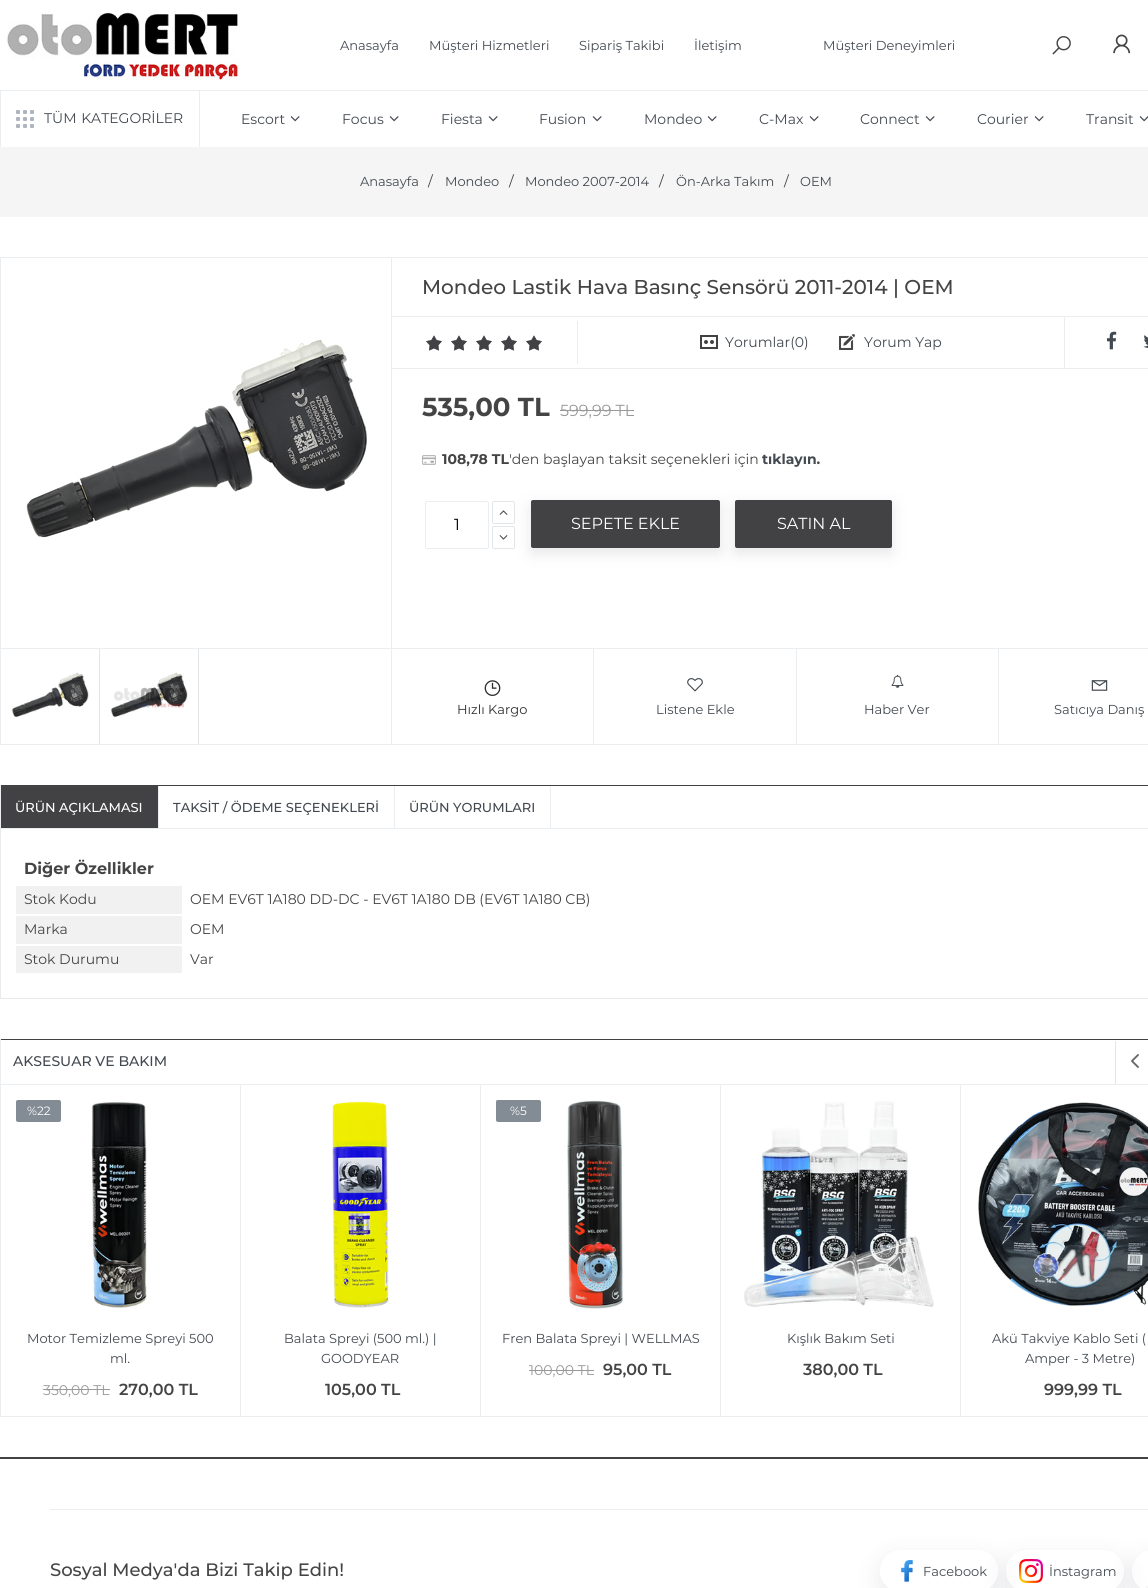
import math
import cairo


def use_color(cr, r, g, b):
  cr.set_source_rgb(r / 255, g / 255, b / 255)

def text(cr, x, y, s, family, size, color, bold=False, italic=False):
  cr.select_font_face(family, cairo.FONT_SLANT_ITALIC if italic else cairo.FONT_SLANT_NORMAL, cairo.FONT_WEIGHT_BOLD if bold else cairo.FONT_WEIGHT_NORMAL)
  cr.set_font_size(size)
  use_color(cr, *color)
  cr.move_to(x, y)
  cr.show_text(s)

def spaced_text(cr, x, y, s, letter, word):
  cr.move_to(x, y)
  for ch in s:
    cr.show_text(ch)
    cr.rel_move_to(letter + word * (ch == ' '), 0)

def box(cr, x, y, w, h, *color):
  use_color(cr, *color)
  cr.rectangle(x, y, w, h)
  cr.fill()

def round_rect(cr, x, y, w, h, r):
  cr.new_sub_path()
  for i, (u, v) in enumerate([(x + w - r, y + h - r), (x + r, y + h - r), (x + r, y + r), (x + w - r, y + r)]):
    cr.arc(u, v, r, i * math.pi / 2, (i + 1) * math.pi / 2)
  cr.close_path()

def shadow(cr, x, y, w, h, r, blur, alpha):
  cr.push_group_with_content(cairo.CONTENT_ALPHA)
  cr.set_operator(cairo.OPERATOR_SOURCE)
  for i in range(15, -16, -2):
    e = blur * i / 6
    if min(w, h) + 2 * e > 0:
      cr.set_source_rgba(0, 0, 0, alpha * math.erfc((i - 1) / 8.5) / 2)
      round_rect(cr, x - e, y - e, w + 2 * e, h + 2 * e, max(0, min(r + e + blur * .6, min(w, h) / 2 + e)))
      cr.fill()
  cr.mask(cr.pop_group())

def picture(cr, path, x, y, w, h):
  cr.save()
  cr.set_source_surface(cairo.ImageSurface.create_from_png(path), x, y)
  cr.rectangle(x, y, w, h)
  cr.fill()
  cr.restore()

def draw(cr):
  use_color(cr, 255, 255, 255)
  cr.paint()
  picture(cr, "img_01.png", 7, 11, 233, 69)
  picture(cr, "img_02.png", 1052, 36, 19, 19)
  picture(cr, "img_03.png", 1113, 34, 18, 20)
  box(cr, 0, 90, 1148, 1, 235, 238, 240)
  box(cr, 199, 91, 1, 56, 235, 238, 240)
  box(cr, 0, 91, 1, 56, 235, 238, 240)
  picture(cr, "img_04.png", 16, 110, 18, 18)
  picture(cr, "img_05.png", 290, 116, 10, 6)
  picture(cr, "img_05.png", 389, 116, 10, 6)
  picture(cr, "img_05.png", 488, 116, 10, 6)
  picture(cr, "img_05.png", 592, 116, 10, 6)
  picture(cr, "img_05.png", 707, 116, 10, 6)
  picture(cr, "img_05.png", 809, 116, 10, 6)
  picture(cr, "img_05.png", 925, 116, 10, 6)
  picture(cr, "img_05.png", 1034, 116, 10, 6)
  picture(cr, "img_06.png", 1139, 116, 9, 6)
  box(cr, 0, 147, 1148, 70, 245, 245, 245)
  cr.rectangle(0.5, 257.5, 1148, 487)
  use_color(cr, 235, 238, 240)
  cr.set_line_width(1)
  cr.stroke()
  box(cr, 391, 258, 1, 486, 235, 238, 240)
  box(cr, 1, 648, 390, 1, 235, 238, 240)
  picture(cr, "img_07.png", 26, 340, 341, 198)
  box(cr, 99, 649, 1, 95, 226, 230, 232)
  picture(cr, "img_08.png", 11, 672, 78, 46)
  box(cr, 198, 649, 1, 95, 226, 230, 232)
  picture(cr, "img_09.png", 110, 672, 78, 45)
  box(cr, 392, 316, 756, 1, 235, 238, 240)
  box(cr, 392, 368, 756, 1, 235, 238, 240)
  box(cr, 577, 321, 1, 43, 235, 238, 240)
  picture(cr, "img_10.png", 426, 335, 116, 16)
  picture(cr, "img_11.png", 426, 335, 116, 16)
  picture(cr, "img_12.png", 700, 335, 18, 14)
  picture(cr, "img_13.png", 839, 334, 16, 16)
  box(cr, 1064, 317, 1, 51, 235, 238, 240)
  picture(cr, "img_14.png", 1107, 331, 10, 19)
  picture(cr, "img_15.png", 1143, 335, 5, 13)
  box(cr, 560, 410, 74, 1, 153, 153, 153)
  picture(cr, "img_16.png", 422, 455, 14, 10)
  round_rect(cr, 425.5, 501.5, 63, 47, 1.5)
  use_color(cr, 235, 238, 240)
  cr.stroke()
  use_color(cr, 117, 117, 117)
  shadow(cr, 531, 505, 189, 48, 2, 7.5, 0.19)
  round_rect(cr, 492.5, 501.5, 22, 22, 1.5)
  use_color(cr, 226, 230, 232)
  cr.stroke()
  picture(cr, "img_17.png", 499, 510, 9, 5)
  round_rect(cr, 492.5, 526.5, 22, 22, 1.5)
  cr.stroke()
  picture(cr, "img_18.png", 499, 535, 9, 5)
  use_color(cr, 66, 66, 68)
  round_rect(cr, 531, 500, 189, 48, 2)
  cr.fill()
  use_color(cr, 117, 117, 117)
  shadow(cr, 735, 505, 157, 48, 2, 7.5, 0.19)
  use_color(cr, 66, 66, 68)
  round_rect(cr, 735, 500, 157, 48, 2)
  cr.fill()
  box(cr, 392, 648, 756, 1, 235, 238, 240)
  box(cr, 593, 649, 1, 96, 235, 238, 240)
  picture(cr, "img_19.png", 484, 680, 17, 16)
  box(cr, 796, 649, 1, 96, 235, 238, 240)
  picture(cr, "img_20.png", 687, 678, 16, 14)
  box(cr, 998, 649, 1, 96, 235, 238, 240)
  picture(cr, "img_21.png", 891, 674, 13, 14)
  picture(cr, "img_22.png", 1091, 680, 17, 11)
  box(cr, 0, 785, 1148, 1, 66, 66, 68)
  box(cr, 0, 828, 1148, 1, 235, 238, 240)
  box(cr, 0, 785, 1, 44, 235, 238, 240)
  box(cr, 1, 786, 157, 42, 66, 66, 68)
  box(cr, 158, 786, 1, 42, 235, 238, 240)
  box(cr, 394, 786, 1, 42, 235, 238, 240)
  box(cr, 550, 786, 1, 42, 235, 238, 240)
  box(cr, 0, 998, 1148, 1, 234, 234, 234)
  box(cr, 0, 829, 1, 170, 234, 234, 234)
  box(cr, 16, 886, 166, 28, 241, 241, 241)
  box(cr, 16, 916, 166, 28, 241, 241, 241)
  box(cr, 16, 946, 166, 27, 241, 241, 241)
  box(cr, 0, 1039, 1148, 1, 66, 66, 68)
  box(cr, 0, 1084, 1148, 1, 235, 238, 240)
  box(cr, 0, 1039, 1, 46, 235, 238, 240)
  box(cr, 0, 1416, 1148, 1, 235, 238, 240)
  box(cr, 0, 1085, 1, 332, 235, 238, 240)
  picture(cr, "img_23.png", 1131, 1054, 8, 14)
  box(cr, 1115, 1041, 1, 43, 226, 230, 232)
  box(cr, 240, 1085, 1, 331, 235, 238, 240)
  picture(cr, "img_24.png", 16, 1100, 131, 208)
  use_color(cr, 131, 139, 148)
  round_rect(cr, 16, 1100, 45, 22, 2)
  cr.fill()
  box(cr, 43, 1389, 67, 1, 153, 153, 153)
  box(cr, 480, 1085, 1, 331, 235, 238, 240)
  picture(cr, "img_25.png", 332, 1101, 57, 207)
  box(cr, 720, 1085, 1, 331, 235, 238, 240)
  picture(cr, "img_26.png", 496, 1100, 209, 209)
  use_color(cr, 131, 139, 148)
  round_rect(cr, 496, 1100, 45, 22, 2)
  cr.fill()
  box(cr, 529, 1370, 65, 1, 153, 153, 153)
  box(cr, 960, 1085, 1, 331, 235, 238, 240)
  picture(cr, "img_27.png", 736, 1100, 198, 207)
  picture(cr, "img_28.png", 978, 1102, 170, 205)
  box(cr, 0, 1457, 1148, 2, 66, 66, 68)
  box(cr, 50, 1509, 1098, 1, 235, 238, 240)
  cr.save()
  cr.set_fill_rule(cairo.FILL_RULE_EVEN_ODD)
  cr.new_path()
  cr.move_to(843, 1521)
  cr.line_to(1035, 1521)
  cr.line_to(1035, 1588)
  cr.line_to(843, 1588)
  cr.close_path()
  cr.move_to(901, 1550)
  cr.line_to(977, 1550)
  cr.curve_to(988.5, 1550, 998, 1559.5, 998, 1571)
  cr.curve_to(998, 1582.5, 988.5, 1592, 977, 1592)
  cr.line_to(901, 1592)
  cr.curve_to(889.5, 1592, 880, 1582.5, 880, 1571)
  cr.curve_to(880, 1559.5, 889.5, 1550, 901, 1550)
  cr.close_path()
  cr.clip()
  use_color(cr, 149, 157, 165)
  shadow(cr, 880, 1558, 118, 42, 21, 12, 0.2)
  cr.restore()
  picture(cr, "img_29.png", 901, 1560, 12, 22)
  cr.save()
  cr.set_fill_rule(cairo.FILL_RULE_EVEN_ODD)
  cr.new_path()
  cr.move_to(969, 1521)
  cr.line_to(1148, 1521)
  cr.line_to(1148, 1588)
  cr.line_to(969, 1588)
  cr.close_path()
  cr.move_to(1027, 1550)
  cr.line_to(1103, 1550)
  cr.curve_to(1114.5, 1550, 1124, 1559.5, 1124, 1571)
  cr.curve_to(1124, 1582.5, 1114.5, 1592, 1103, 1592)
  cr.line_to(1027, 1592)
  cr.curve_to(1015.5, 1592, 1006, 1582.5, 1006, 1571)
  cr.curve_to(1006, 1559.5, 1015.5, 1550, 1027, 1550)
  cr.close_path()
  cr.clip()
  use_color(cr, 149, 157, 165)
  shadow(cr, 1006, 1558, 118, 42, 21, 12, 0.2)
  cr.restore()
  picture(cr, "img_30.png", 1019, 1559, 24, 24)
  cr.save()
  cr.set_fill_rule(cairo.FILL_RULE_EVEN_ODD)
  cr.new_path()
  cr.move_to(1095, 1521)
  cr.line_to(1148, 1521)
  cr.line_to(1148, 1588)
  cr.line_to(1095, 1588)
  cr.close_path()
  cr.move_to(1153, 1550)
  cr.line_to(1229, 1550)
  cr.curve_to(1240.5, 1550, 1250, 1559.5, 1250, 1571)
  cr.curve_to(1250, 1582.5, 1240.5, 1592, 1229, 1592)
  cr.line_to(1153, 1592)
  cr.curve_to(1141.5, 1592, 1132, 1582.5, 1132, 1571)
  cr.curve_to(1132, 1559.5, 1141.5, 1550, 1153, 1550)
  cr.close_path()
  cr.clip()
  use_color(cr, 149, 157, 165)
  shadow(cr, 1132, 1558, 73, 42, 21, 12, 0.2)
  cr.restore()
  box(cr, 1146, 1586, 2, 2, 245, 245, 245)
  text(cr, 340, 50, "Anasayfa", "Montserrat", 13, (67, 73, 80))
  text(cr, 429, 50, "Müşteri Hizmetleri", "Montserrat", 13, (67, 73, 80))
  text(cr, 579, 50, "Sipariş Takibi", "Montserrat", 13, (67, 73, 80))
  text(cr, 694, 50, "İletişim", "Montserrat", 13, (67, 73, 80))
  text(cr, 823, 50, "Müşteri Deneyimleri", "Montserrat", 13, (67, 73, 80))
  cr.set_font_size(14)
  spaced_text(cr, 44, 123, "TÜM KATEGORİLER", 0, 1)
  text(cr, 241, 124, "Escort", "Montserrat", 14, (67, 73, 80))
  text(cr, 342, 124, "Focus", "Montserrat", 14, (67, 73, 80))
  text(cr, 441, 124, "Fiesta", "Montserrat", 14, (67, 73, 80))
  text(cr, 539, 124, "Fusion", "Montserrat", 14, (67, 73, 80))
  text(cr, 644, 124, "Mondeo", "Montserrat", 14, (67, 73, 80))
  text(cr, 759, 124, "C-Max", "Montserrat", 14, (67, 73, 80))
  text(cr, 860, 124, "Connect", "Montserrat", 14, (67, 73, 80))
  text(cr, 977, 124, "Courier", "Montserrat", 14, (67, 73, 80))
  text(cr, 1086, 124, "Transit", "Montserrat", 14, (67, 73, 80))
  text(cr, 360, 186, "Anasayfa", "Montserrat", 13, (67, 73, 80))
  text(cr, 428, 186, "/", "Montserrat", 14, (68, 68, 68))
  text(cr, 445, 186, "Mondeo", "Montserrat", 13, (67, 73, 80))
  text(cr, 509, 186, "/", "Montserrat", 14, (68, 68, 68))
  text(cr, 525, 186, "Mondeo 2007-2014", "Montserrat", 13, (67, 73, 80))
  text(cr, 659, 186, "/", "Montserrat", 14, (68, 68, 68))
  text(cr, 676, 186, "Ön-Arka Takım", "Montserrat", 13, (67, 73, 80))
  text(cr, 784, 186, "/", "Montserrat", 14, (68, 68, 68))
  text(cr, 800, 186, "OEM", "Montserrat", 13, (67, 73, 80))
  text(cr, 422, 294, "Mondeo Lastik Hava Basınç Sensörü 2011-2014 | OEM", "Montserrat Medium", 20, (68, 68, 68))
  text(cr, 725, 347, "Yorumlar(0)", "Montserrat", 14, (67, 73, 80))
  text(cr, 864, 347, "Yorum Yap", "Montserrat", 14, (67, 73, 80))
  text(cr, 422, 416, "535,00 TL", "Montserrat", 26, (68, 68, 68), bold=True)
  text(cr, 560, 416, "599,99 TL", "Montserrat", 16, (153, 153, 153))
  text(cr, 442, 464, "108,78 TL", "Montserrat", 14, (68, 68, 68), bold=True)
  text(cr, 509, 464, "'den başlayan taksit seçenekleri için", "Montserrat", 14, (68, 68, 68))
  text(cr, 762, 464, "tıklayın.", "Montserrat", 14, (67, 73, 80), bold=True)
  text(cr, 454, 530, "1", "Montserrat", 16, (0, 0, 0))
  text(cr, 571, 529, "SEPETE EKLE", "Montserrat", 16, (255, 255, 255))
  text(cr, 777, 529, "SATIN AL", "Montserrat", 16, (255, 255, 255))
  text(cr, 457, 714, "Hızlı Kargo", "Montserrat", 13, (46, 46, 47))
  text(cr, 656, 714, "Listene Ekle", "Montserrat", 13, (67, 73, 80))
  text(cr, 864, 714, "Haber Ver", "Montserrat", 13, (67, 73, 80))
  text(cr, 1054, 714, "Satıcıya Danış", "Montserrat", 13, (67, 73, 80))
  text(cr, 15, 812, "ÜRÜN AÇIKLAMASI", "Montserrat Medium", 13, (255, 255, 255))
  text(cr, 173, 812, "TAKSİT / ÖDEME SEÇENEKLERİ", "Montserrat Medium", 13, (67, 73, 80))
  text(cr, 409, 812, "ÜRÜN YORUMLARI", "Montserrat Medium", 13, (67, 73, 80))
  text(cr, 24, 874, "Diğer Özellikler", "Montserrat", 16, (68, 68, 68), bold=True)
  text(cr, 24, 904, "Stok Kodu", "Montserrat", 14, (68, 68, 68))
  text(cr, 190, 904, "OEM EV6T 1A180 DD-DC - EV6T 1A180 DB (EV6T 1A180 CB)", "Montserrat", 14, (68, 68, 68))
  text(cr, 24, 934, "Marka", "Montserrat", 14, (68, 68, 68))
  text(cr, 190, 934, "OEM", "Montserrat", 14, (68, 68, 68))
  text(cr, 24, 964, "Stok Durumu", "Montserrat", 14, (68, 68, 68))
  text(cr, 190, 964, "Var", "Montserrat", 14, (68, 68, 68))
  text(cr, 13, 1066, "AKSESUAR VE BAKIM", "Montserrat Medium", 14, (67, 73, 80))
  text(cr, 27, 1115, "%22", "Montserrat", 12, (255, 255, 255))
  text(cr, 27, 1343, "Motor Temizleme Spreyi 500", "Montserrat", 13, (67, 73, 80))
  text(cr, 110, 1363, "ml.", "Montserrat", 13, (67, 73, 80))
  text(cr, 43, 1395, "350,00 TL", "Montserrat", 14, (153, 153, 153))
  text(cr, 119, 1395, "270,00 TL", "Montserrat SemiBold", 16, (68, 68, 68))
  text(cr, 284, 1343, "Balata Spreyi (500 ml.) |", "Montserrat", 13, (67, 73, 80))
  text(cr, 321, 1363, "GOODYEAR", "Montserrat", 13, (67, 73, 80))
  text(cr, 325, 1395, "105,00 TL", "Montserrat SemiBold", 16, (68, 68, 68))
  text(cr, 510, 1115, "%5", "Montserrat", 12, (255, 255, 255))
  text(cr, 502, 1343, "Fren Balata Spreyi | WELLMAS", "Montserrat", 13, (67, 73, 80))
  text(cr, 529, 1375, "100,00 TL", "Montserrat", 14, (153, 153, 153))
  text(cr, 603, 1375, "95,00 TL", "Montserrat SemiBold", 16, (68, 68, 68))
  text(cr, 787, 1343, "Kışlık Bakım Seti", "Montserrat", 13, (67, 73, 80))
  text(cr, 803, 1375, "380,00 TL", "Montserrat SemiBold", 16, (68, 68, 68))
  text(cr, 992, 1343, "Akü Takviye Kablo Seti (", "Montserrat", 13, (67, 73, 80))
  text(cr, 1025, 1363, "Amper - 3 Metre)", "Montserrat", 13, (67, 73, 80))
  text(cr, 1044, 1395, "999,99 TL", "Montserrat SemiBold", 16, (68, 68, 68))
  text(cr, 50, 1576, "Sosyal Medya'da Bizi Takip Edin!", "Montserrat Medium", 18, (68, 68, 68))
  text(cr, 923, 1576, "Facebook", "Montserrat", 13, (67, 73, 80))
  text(cr, 1049, 1576, "İnstagram", "Montserrat", 13, (67, 73, 80))


surface = cairo.ImageSurface(cairo.FORMAT_RGB24, 1148, 1588)
cr = cairo.Context(surface)
options = cairo.FontOptions()
options.set_hint_metrics(cairo.HINT_METRICS_OFF)
options.set_hint_style(cairo.HINT_STYLE_NONE)
cr.set_font_options(options)
cr.set_miter_limit(4)
draw(cr)
surface.write_to_png("out.png")
